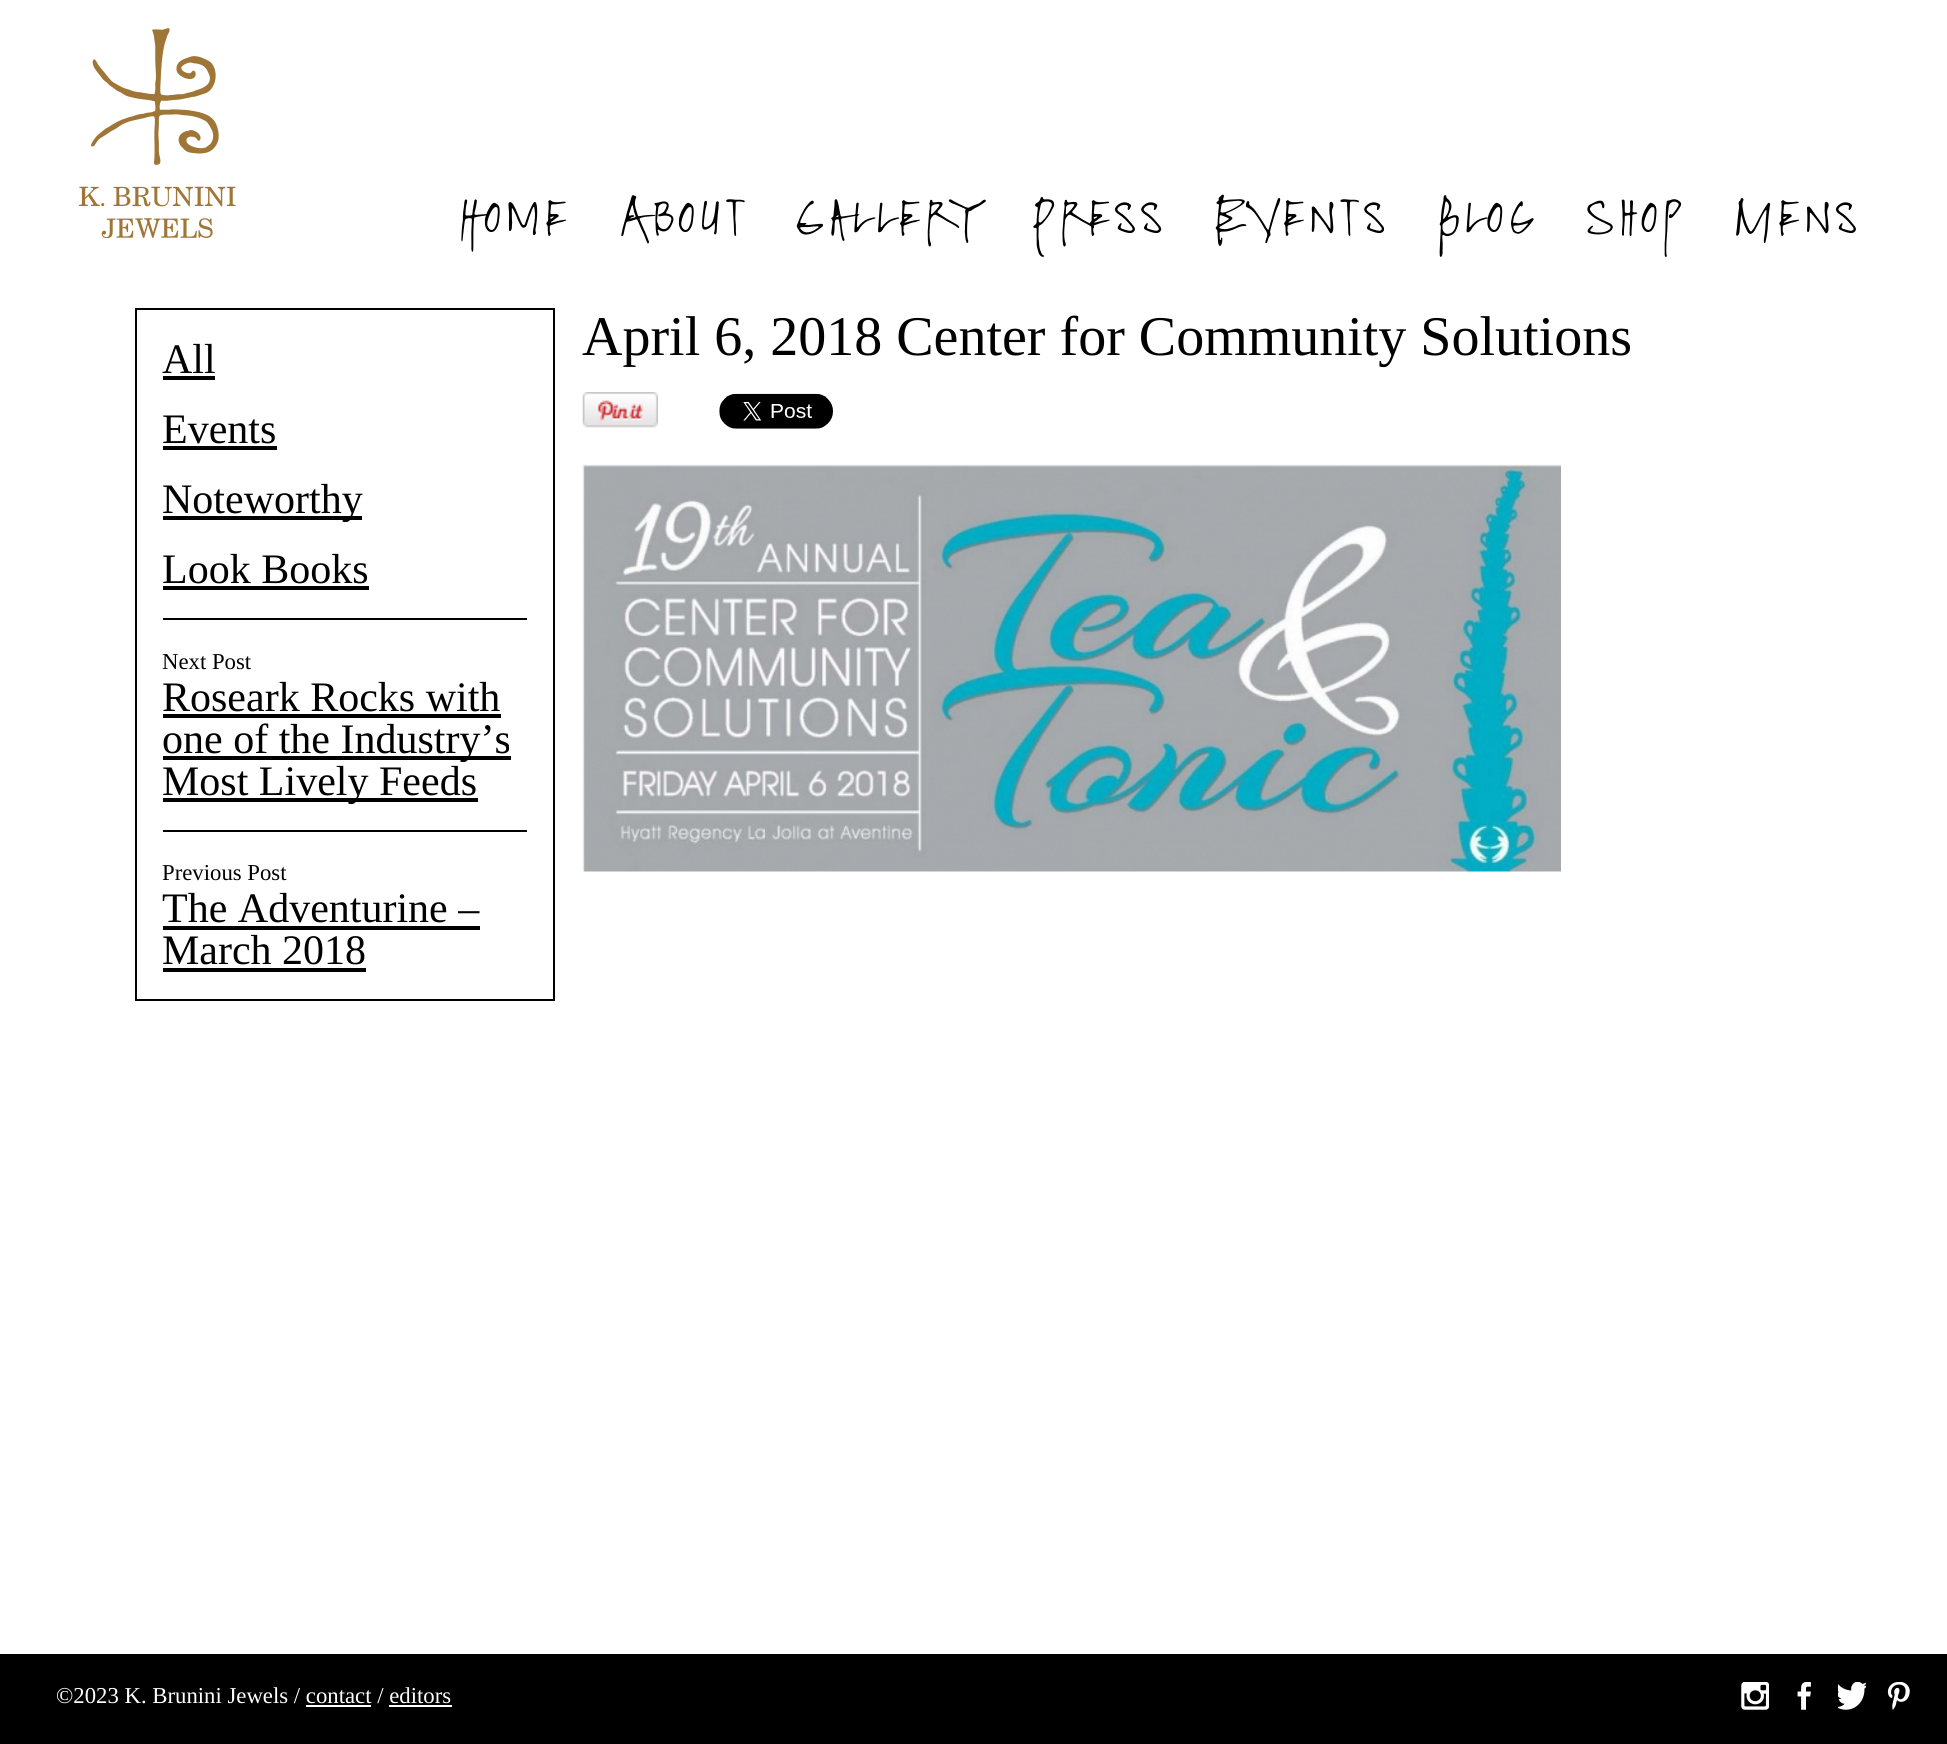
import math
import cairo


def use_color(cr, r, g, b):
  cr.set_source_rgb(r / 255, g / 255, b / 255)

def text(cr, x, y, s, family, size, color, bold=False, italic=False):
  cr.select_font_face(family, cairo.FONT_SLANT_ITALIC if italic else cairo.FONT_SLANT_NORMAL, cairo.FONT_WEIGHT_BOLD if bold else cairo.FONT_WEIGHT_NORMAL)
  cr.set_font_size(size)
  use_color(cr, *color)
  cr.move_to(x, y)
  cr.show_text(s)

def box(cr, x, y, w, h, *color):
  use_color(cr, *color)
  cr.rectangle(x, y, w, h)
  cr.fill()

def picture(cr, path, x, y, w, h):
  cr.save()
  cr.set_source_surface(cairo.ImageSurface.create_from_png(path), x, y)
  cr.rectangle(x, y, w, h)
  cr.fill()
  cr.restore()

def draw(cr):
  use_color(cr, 255, 255, 255)
  cr.paint()
  picture(cr, "img_01.png", 79, 28, 157, 210)
  cr.rectangle(136, 309, 418, 691)
  use_color(cr, 0, 0, 0)
  cr.stroke()
  box(cr, 163, 376, 52, 4, 0, 0, 0)
  box(cr, 163, 446, 114, 4, 0, 0, 0)
  box(cr, 163, 516, 199, 4, 0, 0, 0)
  box(cr, 163, 586, 206, 4, 0, 0, 0)
  box(cr, 163, 618, 364, 2, 0, 0, 0)
  box(cr, 163, 714, 338, 4, 0, 0, 0)
  box(cr, 163, 756, 348, 4, 0, 0, 0)
  box(cr, 163, 798, 315, 4, 0, 0, 0)
  box(cr, 163, 830, 364, 2, 0, 0, 0)
  box(cr, 163, 926, 317, 4, 0, 0, 0)
  box(cr, 163, 968, 203, 4, 0, 0, 0)
  picture(cr, "img_02.png", 582, 392, 76, 36)
  picture(cr, "img_03.png", 719, 393, 114, 36)
  picture(cr, "img_04.png", 582, 464, 979, 408)
  box(cr, 0, 1654, 1947, 90, 0, 0, 0)
  box(cr, 306, 1705, 65, 2, 255, 255, 255)
  box(cr, 389, 1705, 63, 2, 255, 255, 255)
  picture(cr, "img_05.png", 1741, 1682, 28, 28)
  picture(cr, "img_06.png", 1797, 1682, 14, 28)
  picture(cr, "img_07.png", 1838, 1682, 28, 28)
  picture(cr, "img_08.png", 1887, 1682, 23, 28)
  text(cr, 456, 236, "Home", "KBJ", 52.5, (0, 0, 0))
  text(cr, 616, 236, "About", "KBJ", 52.5, (0, 0, 0))
  text(cr, 794, 236, "Gallery", "KBJ", 52.5, (0, 0, 0))
  text(cr, 1031, 236, "Press", "KBJ", 52.5, (0, 0, 0))
  text(cr, 1212, 236, "Events", "KBJ", 52.5, (0, 0, 0))
  text(cr, 1435, 236, "Blog", "KBJ", 52.5, (0, 0, 0))
  text(cr, 1584, 236, "Shop", "KBJ", 52.5, (0, 0, 0))
  text(cr, 1731, 236, "Mens", "KBJ", 52.5, (0, 0, 0))
  text(cr, 162, 373, "All", "Liberation Serif", 42, (0, 0, 0))
  text(cr, 162, 443, "Events", "Liberation Serif", 42, (0, 0, 0))
  text(cr, 162, 513, "Noteworthy", "Liberation Serif", 42, (0, 0, 0))
  text(cr, 162, 583, "Look Books", "Liberation Serif", 42, (0, 0, 0))
  text(cr, 162, 669, "Next Post", "Liberation Serif", 22.75, (0, 0, 0))
  text(cr, 162, 711, "Roseark Rocks with", "Liberation Serif", 42, (0, 0, 0))
  text(cr, 162, 753, "one of the Industry’s", "Liberation Serif", 42, (0, 0, 0))
  text(cr, 162, 795, "Most Lively Feeds", "Liberation Serif", 42, (0, 0, 0))
  text(cr, 162, 880, "Previous Post", "Liberation Serif", 22.75, (0, 0, 0))
  text(cr, 162, 922, "The Adventurine –", "Liberation Serif", 42, (0, 0, 0))
  text(cr, 162, 964, "March 2018", "Liberation Serif", 42, (0, 0, 0))
  text(cr, 582, 355, "April 6, 2018 Center for Community Solutions", "Liberation Serif", 56, (0, 0, 0))
  text(cr, 56, 1703, "©2023 K. Brunini Jewels / contact / editors", "Liberation Serif", 22.75, (255, 255, 255))


surface = cairo.ImageSurface(cairo.FORMAT_RGB24, 1947, 1744)
cr = cairo.Context(surface)
options = cairo.FontOptions()
options.set_hint_metrics(cairo.HINT_METRICS_OFF)
options.set_hint_style(cairo.HINT_STYLE_NONE)
cr.set_font_options(options)
cr.set_miter_limit(4)
draw(cr)
surface.write_to_png("out.png")
